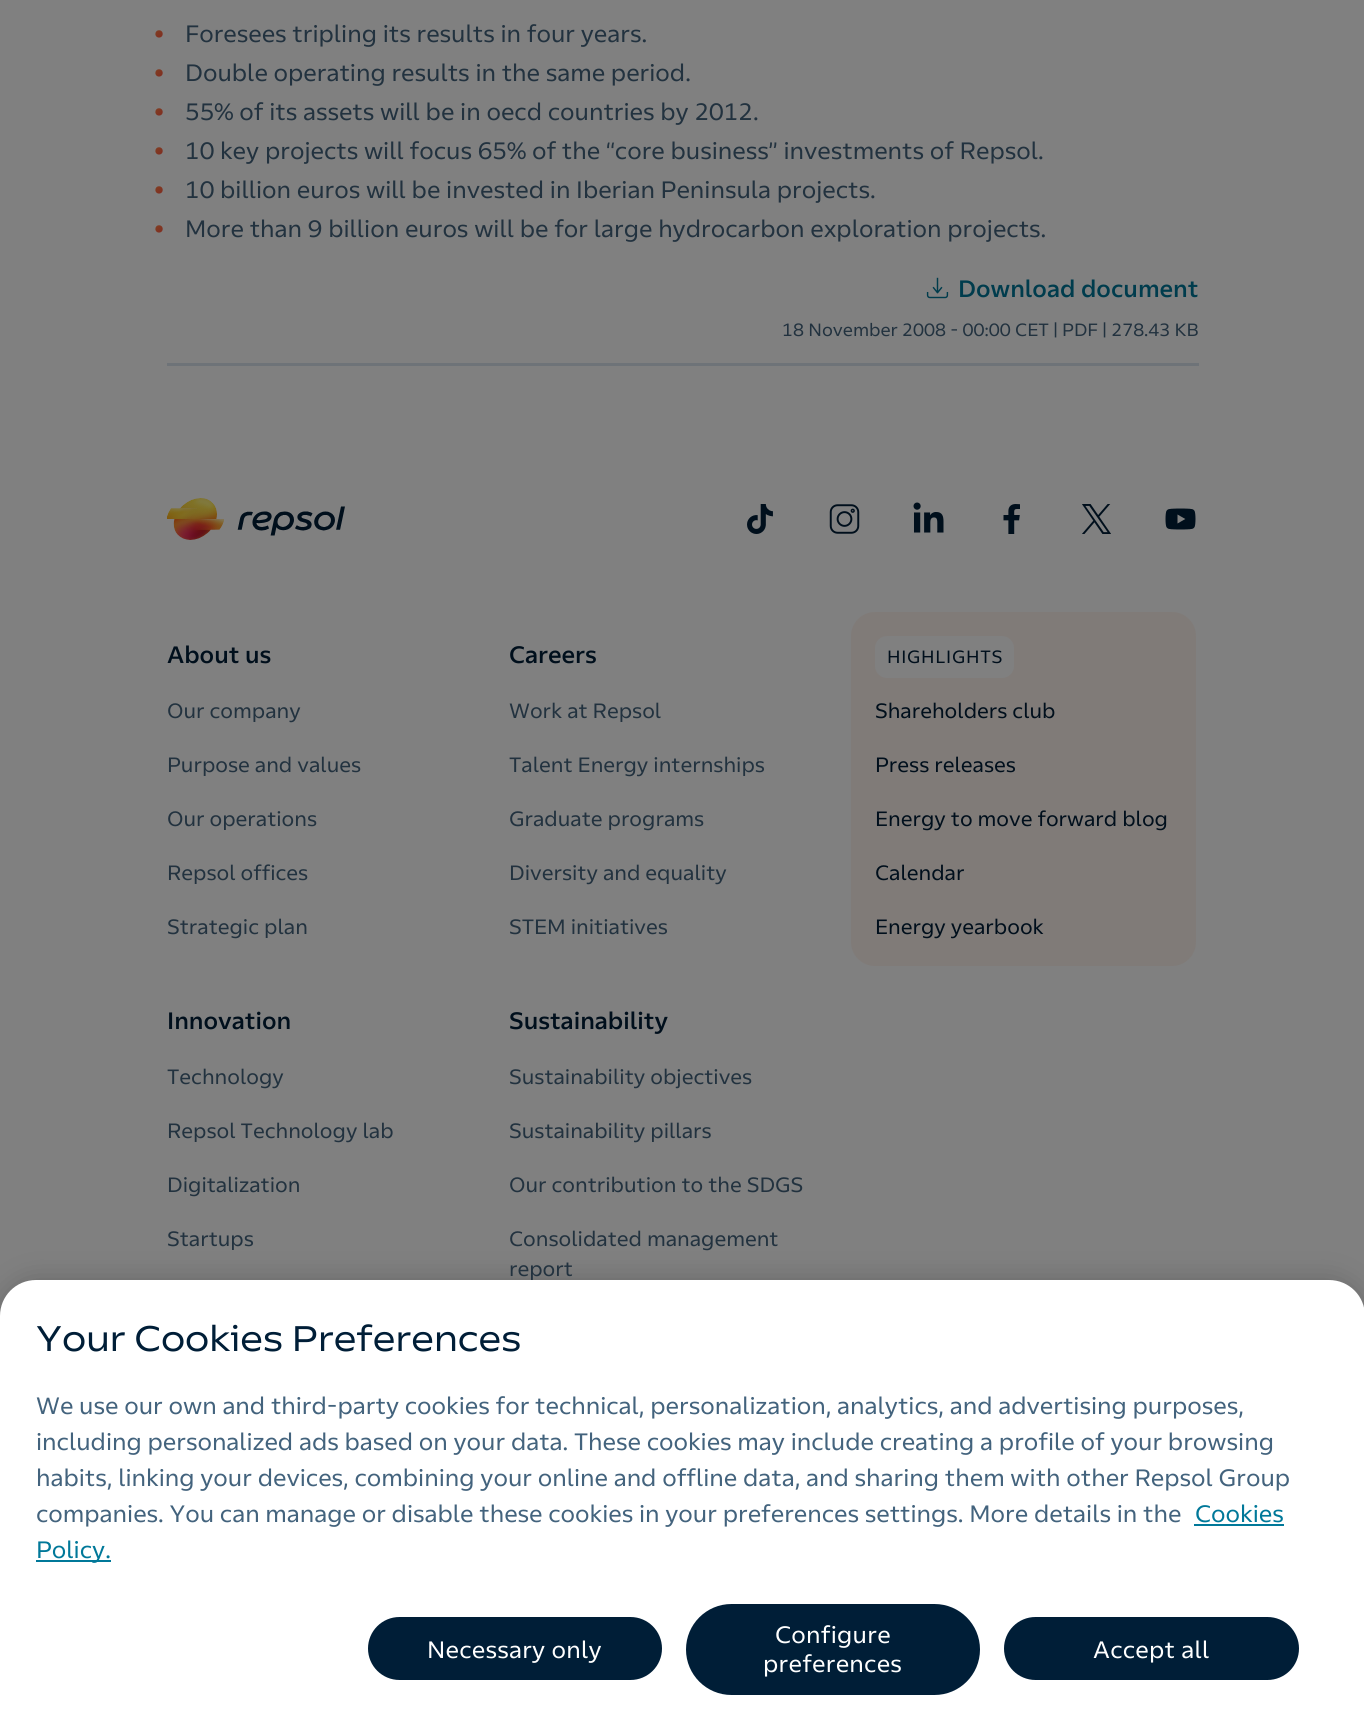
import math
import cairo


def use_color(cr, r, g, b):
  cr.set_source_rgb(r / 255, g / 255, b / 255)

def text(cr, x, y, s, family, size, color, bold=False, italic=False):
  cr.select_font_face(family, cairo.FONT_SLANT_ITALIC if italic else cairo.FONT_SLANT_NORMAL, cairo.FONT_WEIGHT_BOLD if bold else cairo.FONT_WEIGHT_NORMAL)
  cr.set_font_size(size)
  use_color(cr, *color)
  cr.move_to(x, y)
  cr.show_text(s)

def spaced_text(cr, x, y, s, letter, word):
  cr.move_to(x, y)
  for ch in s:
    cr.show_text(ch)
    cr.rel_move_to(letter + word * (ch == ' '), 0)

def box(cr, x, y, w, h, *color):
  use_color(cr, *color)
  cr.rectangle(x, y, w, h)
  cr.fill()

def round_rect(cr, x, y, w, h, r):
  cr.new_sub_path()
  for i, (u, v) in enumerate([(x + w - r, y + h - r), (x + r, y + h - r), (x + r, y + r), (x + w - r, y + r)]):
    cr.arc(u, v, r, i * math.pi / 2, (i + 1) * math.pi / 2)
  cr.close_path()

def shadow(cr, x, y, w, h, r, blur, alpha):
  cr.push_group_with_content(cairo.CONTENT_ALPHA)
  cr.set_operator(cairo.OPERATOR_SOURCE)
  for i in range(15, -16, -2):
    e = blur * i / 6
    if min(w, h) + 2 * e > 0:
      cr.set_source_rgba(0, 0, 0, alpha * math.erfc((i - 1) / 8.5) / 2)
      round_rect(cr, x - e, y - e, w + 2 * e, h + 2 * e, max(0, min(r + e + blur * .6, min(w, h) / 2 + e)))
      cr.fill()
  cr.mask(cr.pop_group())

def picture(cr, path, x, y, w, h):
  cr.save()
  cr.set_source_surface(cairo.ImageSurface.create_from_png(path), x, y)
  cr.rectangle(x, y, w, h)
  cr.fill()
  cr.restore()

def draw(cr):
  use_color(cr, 128, 128, 128)
  cr.paint()
  picture(cr, "img_01.png", 926, 277, 23, 22)
  box(cr, 167, 363, 1032, 3, 110, 115, 120)
  picture(cr, "img_02.png", 167, 498, 178, 42)
  picture(cr, "img_03.png", 747, 504, 26, 30)
  picture(cr, "img_04.png", 829, 504, 31, 30)
  picture(cr, "img_05.png", 913, 502, 31, 31)
  picture(cr, "img_06.png", 1003, 504, 17, 30)
  picture(cr, "img_07.png", 1082, 504, 29, 30)
  picture(cr, "img_08.png", 1165, 508, 31, 22)
  use_color(cr, 128, 123, 120)
  round_rect(cr, 851, 612, 345, 354, 24)
  cr.fill()
  use_color(cr, 128, 128, 128)
  round_rect(cr, 875, 636, 139, 42, 12)
  cr.fill()
  use_color(cr, 0, 0, 0)
  shadow(cr, 0, 1280, 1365, 451, 36, 13.5, 0.2)
  use_color(cr, 255, 255, 255)
  cr.new_path()
  cr.move_to(36, 1280)
  cr.line_to(1329, 1280)
  cr.curve_to(1349, 1280, 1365, 1296, 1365, 1316)
  cr.line_to(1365, 1731)
  cr.line_to(0, 1731)
  cr.line_to(0, 1316)
  cr.curve_to(0, 1296, 16, 1280, 36, 1280)
  cr.close_path()
  cr.fill()
  box(cr, 1194, 1524, 90, 2, 0, 120, 153)
  box(cr, 36, 1560, 75, 2, 0, 120, 153)
  use_color(cr, 0, 30, 55)
  round_rect(cr, 368, 1617, 294, 63, 31.5)
  cr.fill()
  round_rect(cr, 686, 1604, 294, 91, 45.5)
  cr.fill()
  round_rect(cr, 1004, 1617, 295, 63, 31.5)
  cr.fill()
  cr.select_font_face("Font", cairo.FONT_SLANT_NORMAL, cairo.FONT_WEIGHT_BOLD)
  cr.set_font_size(36)
  gradient = cairo.LinearGradient(151, 14, 186, 52)
  gradient.add_color_stop_rgba(0, 0.502, 0.306, 0, 1)
  gradient.add_color_stop_rgba(0.29, 0.502, 0.247, 0.137, 1)
  gradient.add_color_stop_rgba(0.67, 0.502, 0.11, 0.125, 1)
  gradient.add_color_stop_rgba(1, 0.376, 0.063, 0.094, 1)
  cr.set_source(gradient)
  cr.move_to(153, 47)
  cr.show_text("•")
  text(cr, 185, 42, "Foresees tripling its results in four years.", "Font", 24, (34, 50, 63))
  cr.select_font_face("Font", cairo.FONT_SLANT_NORMAL, cairo.FONT_WEIGHT_BOLD)
  cr.set_font_size(36)
  gradient = cairo.LinearGradient(151, 53, 186, 91)
  gradient.add_color_stop_rgba(0, 0.502, 0.306, 0, 1)
  gradient.add_color_stop_rgba(0.29, 0.502, 0.247, 0.137, 1)
  gradient.add_color_stop_rgba(0.67, 0.502, 0.11, 0.125, 1)
  gradient.add_color_stop_rgba(1, 0.376, 0.063, 0.094, 1)
  cr.set_source(gradient)
  cr.move_to(153, 86)
  cr.show_text("•")
  text(cr, 185, 81, "Double operating results in the same period.", "Font", 24, (34, 50, 63))
  cr.select_font_face("Font", cairo.FONT_SLANT_NORMAL, cairo.FONT_WEIGHT_BOLD)
  cr.set_font_size(36)
  gradient = cairo.LinearGradient(151, 92, 186, 130)
  gradient.add_color_stop_rgba(0, 0.502, 0.306, 0, 1)
  gradient.add_color_stop_rgba(0.29, 0.502, 0.247, 0.137, 1)
  gradient.add_color_stop_rgba(0.67, 0.502, 0.11, 0.125, 1)
  gradient.add_color_stop_rgba(1, 0.376, 0.063, 0.094, 1)
  cr.set_source(gradient)
  cr.move_to(153, 125)
  cr.show_text("•")
  text(cr, 185, 120, "55% of its assets will be in oecd countries by 2012.", "Font", 24, (34, 50, 63))
  cr.select_font_face("Font", cairo.FONT_SLANT_NORMAL, cairo.FONT_WEIGHT_BOLD)
  cr.set_font_size(36)
  gradient = cairo.LinearGradient(151, 131, 186, 169)
  gradient.add_color_stop_rgba(0, 0.502, 0.306, 0, 1)
  gradient.add_color_stop_rgba(0.29, 0.502, 0.247, 0.137, 1)
  gradient.add_color_stop_rgba(0.67, 0.502, 0.11, 0.125, 1)
  gradient.add_color_stop_rgba(1, 0.376, 0.063, 0.094, 1)
  cr.set_source(gradient)
  cr.move_to(153, 164)
  cr.show_text("•")
  text(cr, 185, 159, "10 key projects will focus 65% of the “core business” investments of Repsol.", "Font", 24, (34, 50, 63))
  cr.select_font_face("Font", cairo.FONT_SLANT_NORMAL, cairo.FONT_WEIGHT_BOLD)
  cr.set_font_size(36)
  gradient = cairo.LinearGradient(151, 170, 186, 208)
  gradient.add_color_stop_rgba(0, 0.502, 0.306, 0, 1)
  gradient.add_color_stop_rgba(0.29, 0.502, 0.247, 0.137, 1)
  gradient.add_color_stop_rgba(0.67, 0.502, 0.11, 0.125, 1)
  gradient.add_color_stop_rgba(1, 0.376, 0.063, 0.094, 1)
  cr.set_source(gradient)
  cr.move_to(153, 203)
  cr.show_text("•")
  text(cr, 185, 198, "10 billion euros will be invested in Iberian Peninsula projects.", "Font", 24, (34, 50, 63))
  cr.select_font_face("Font", cairo.FONT_SLANT_NORMAL, cairo.FONT_WEIGHT_BOLD)
  cr.set_font_size(36)
  gradient = cairo.LinearGradient(151, 209, 186, 247)
  gradient.add_color_stop_rgba(0, 0.502, 0.306, 0, 1)
  gradient.add_color_stop_rgba(0.29, 0.502, 0.247, 0.137, 1)
  gradient.add_color_stop_rgba(0.67, 0.502, 0.11, 0.125, 1)
  gradient.add_color_stop_rgba(1, 0.376, 0.063, 0.094, 1)
  cr.set_source(gradient)
  cr.move_to(153, 242)
  cr.show_text("•")
  text(cr, 185, 237, "More than 9 billion euros will be for large hydrocarbon exploration projects.", "Font", 24, (34, 50, 63))
  text(cr, 958, 297, "Download document", "Font SemiBold", 24, (0, 60, 77))
  text(cr, 782, 336, "18 November 2008 - 00:00 CET | PDF | 278.43 KB", "Font", 18, (34, 50, 63))
  text(cr, 167, 663, "About us", "Font SemiBold", 24, (0, 15, 28))
  text(cr, 167, 718, "Our company", "Font", 21, (34, 50, 63))
  text(cr, 167, 772, "Purpose and values", "Font", 21, (34, 50, 63))
  text(cr, 167, 826, "Our operations", "Font", 21, (34, 50, 63))
  text(cr, 167, 880, "Repsol offices", "Font", 21, (34, 50, 63))
  text(cr, 167, 934, "Strategic plan", "Font", 21, (34, 50, 63))
  text(cr, 509, 663, "Careers", "Font SemiBold", 24, (0, 15, 28))
  text(cr, 509, 718, "Work at Repsol", "Font", 21, (34, 50, 63))
  text(cr, 509, 772, "Talent Energy internships", "Font", 21, (34, 50, 63))
  text(cr, 509, 826, "Graduate programs", "Font", 21, (34, 50, 63))
  text(cr, 509, 880, "Diversity and equality", "Font", 21, (34, 50, 63))
  text(cr, 509, 934, "STEM initiatives", "Font", 21, (34, 50, 63))
  text(cr, 167, 1029, "Innovation", "Font SemiBold", 24, (0, 15, 28))
  text(cr, 167, 1084, "Technology", "Font", 21, (34, 50, 63))
  text(cr, 167, 1138, "Repsol Technology lab", "Font", 21, (34, 50, 63))
  text(cr, 167, 1192, "Digitalization", "Font", 21, (34, 50, 63))
  text(cr, 167, 1246, "Startups", "Font", 21, (34, 50, 63))
  text(cr, 509, 1029, "Sustainability", "Font SemiBold", 24, (0, 15, 28))
  text(cr, 509, 1084, "Sustainability objectives", "Font", 21, (34, 50, 63))
  text(cr, 509, 1138, "Sustainability pillars", "Font", 21, (34, 50, 63))
  text(cr, 509, 1192, "Our contribution to the SDGS", "Font", 21, (34, 50, 63))
  text(cr, 509, 1246, "Consolidated management", "Font", 21, (34, 50, 63))
  text(cr, 509, 1276, "report", "Font", 21, (34, 50, 63))
  cr.set_font_size(18)
  use_color(cr, 0, 15, 28)
  spaced_text(cr, 887, 663, "HIGHLIGHTS", 0.75, 0)
  text(cr, 875, 718, "Shareholders club", "Font", 21, (0, 15, 28))
  text(cr, 875, 772, "Press releases", "Font", 21, (0, 15, 28))
  text(cr, 875, 826, "Energy to move forward blog", "Font", 21, (0, 15, 28))
  text(cr, 875, 880, "Calendar", "Font", 21, (0, 15, 28))
  text(cr, 875, 934, "Energy yearbook", "Font", 21, (0, 15, 28))
  text(cr, 36, 1351, "Your Cookies Preferences", "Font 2", 36, (0, 30, 55))
  text(cr, 36, 1414, "We use our own and third-party cookies for technical, personalization, analytics, and advertising purposes,", "Font", 24, (67, 99, 125))
  text(cr, 36, 1450, "including personalized ads based on your data. These cookies may include creating a profile of your browsing", "Font", 24, (67, 99, 125))
  text(cr, 36, 1486, "habits, linking your devices, combining your online and offline data, and sharing them with other Repsol Group", "Font", 24, (67, 99, 125))
  text(cr, 36, 1522, "companies. You can manage or disable these cookies in your preferences settings. More details in the", "Font", 24, (67, 99, 125))
  text(cr, 1195, 1522, "Cookies", "Font", 24, (0, 120, 153))
  text(cr, 36, 1558, "Policy.", "Font", 24, (0, 120, 153))
  use_color(cr, 255, 255, 255)
  spaced_text(cr, 427, 1658, "Necessary only", 0.25, 0)
  spaced_text(cr, 775, 1643, "Configure", 0.25, 0)
  spaced_text(cr, 763, 1672, "preferences", 0.25, 0)
  spaced_text(cr, 1093, 1658, "Accept all", 0.25, 0)


surface = cairo.ImageSurface(cairo.FORMAT_RGB24, 1364, 1731)
cr = cairo.Context(surface)
options = cairo.FontOptions()
options.set_hint_metrics(cairo.HINT_METRICS_OFF)
options.set_hint_style(cairo.HINT_STYLE_NONE)
cr.set_font_options(options)
cr.set_miter_limit(4)
draw(cr)
surface.write_to_png("out.png")
